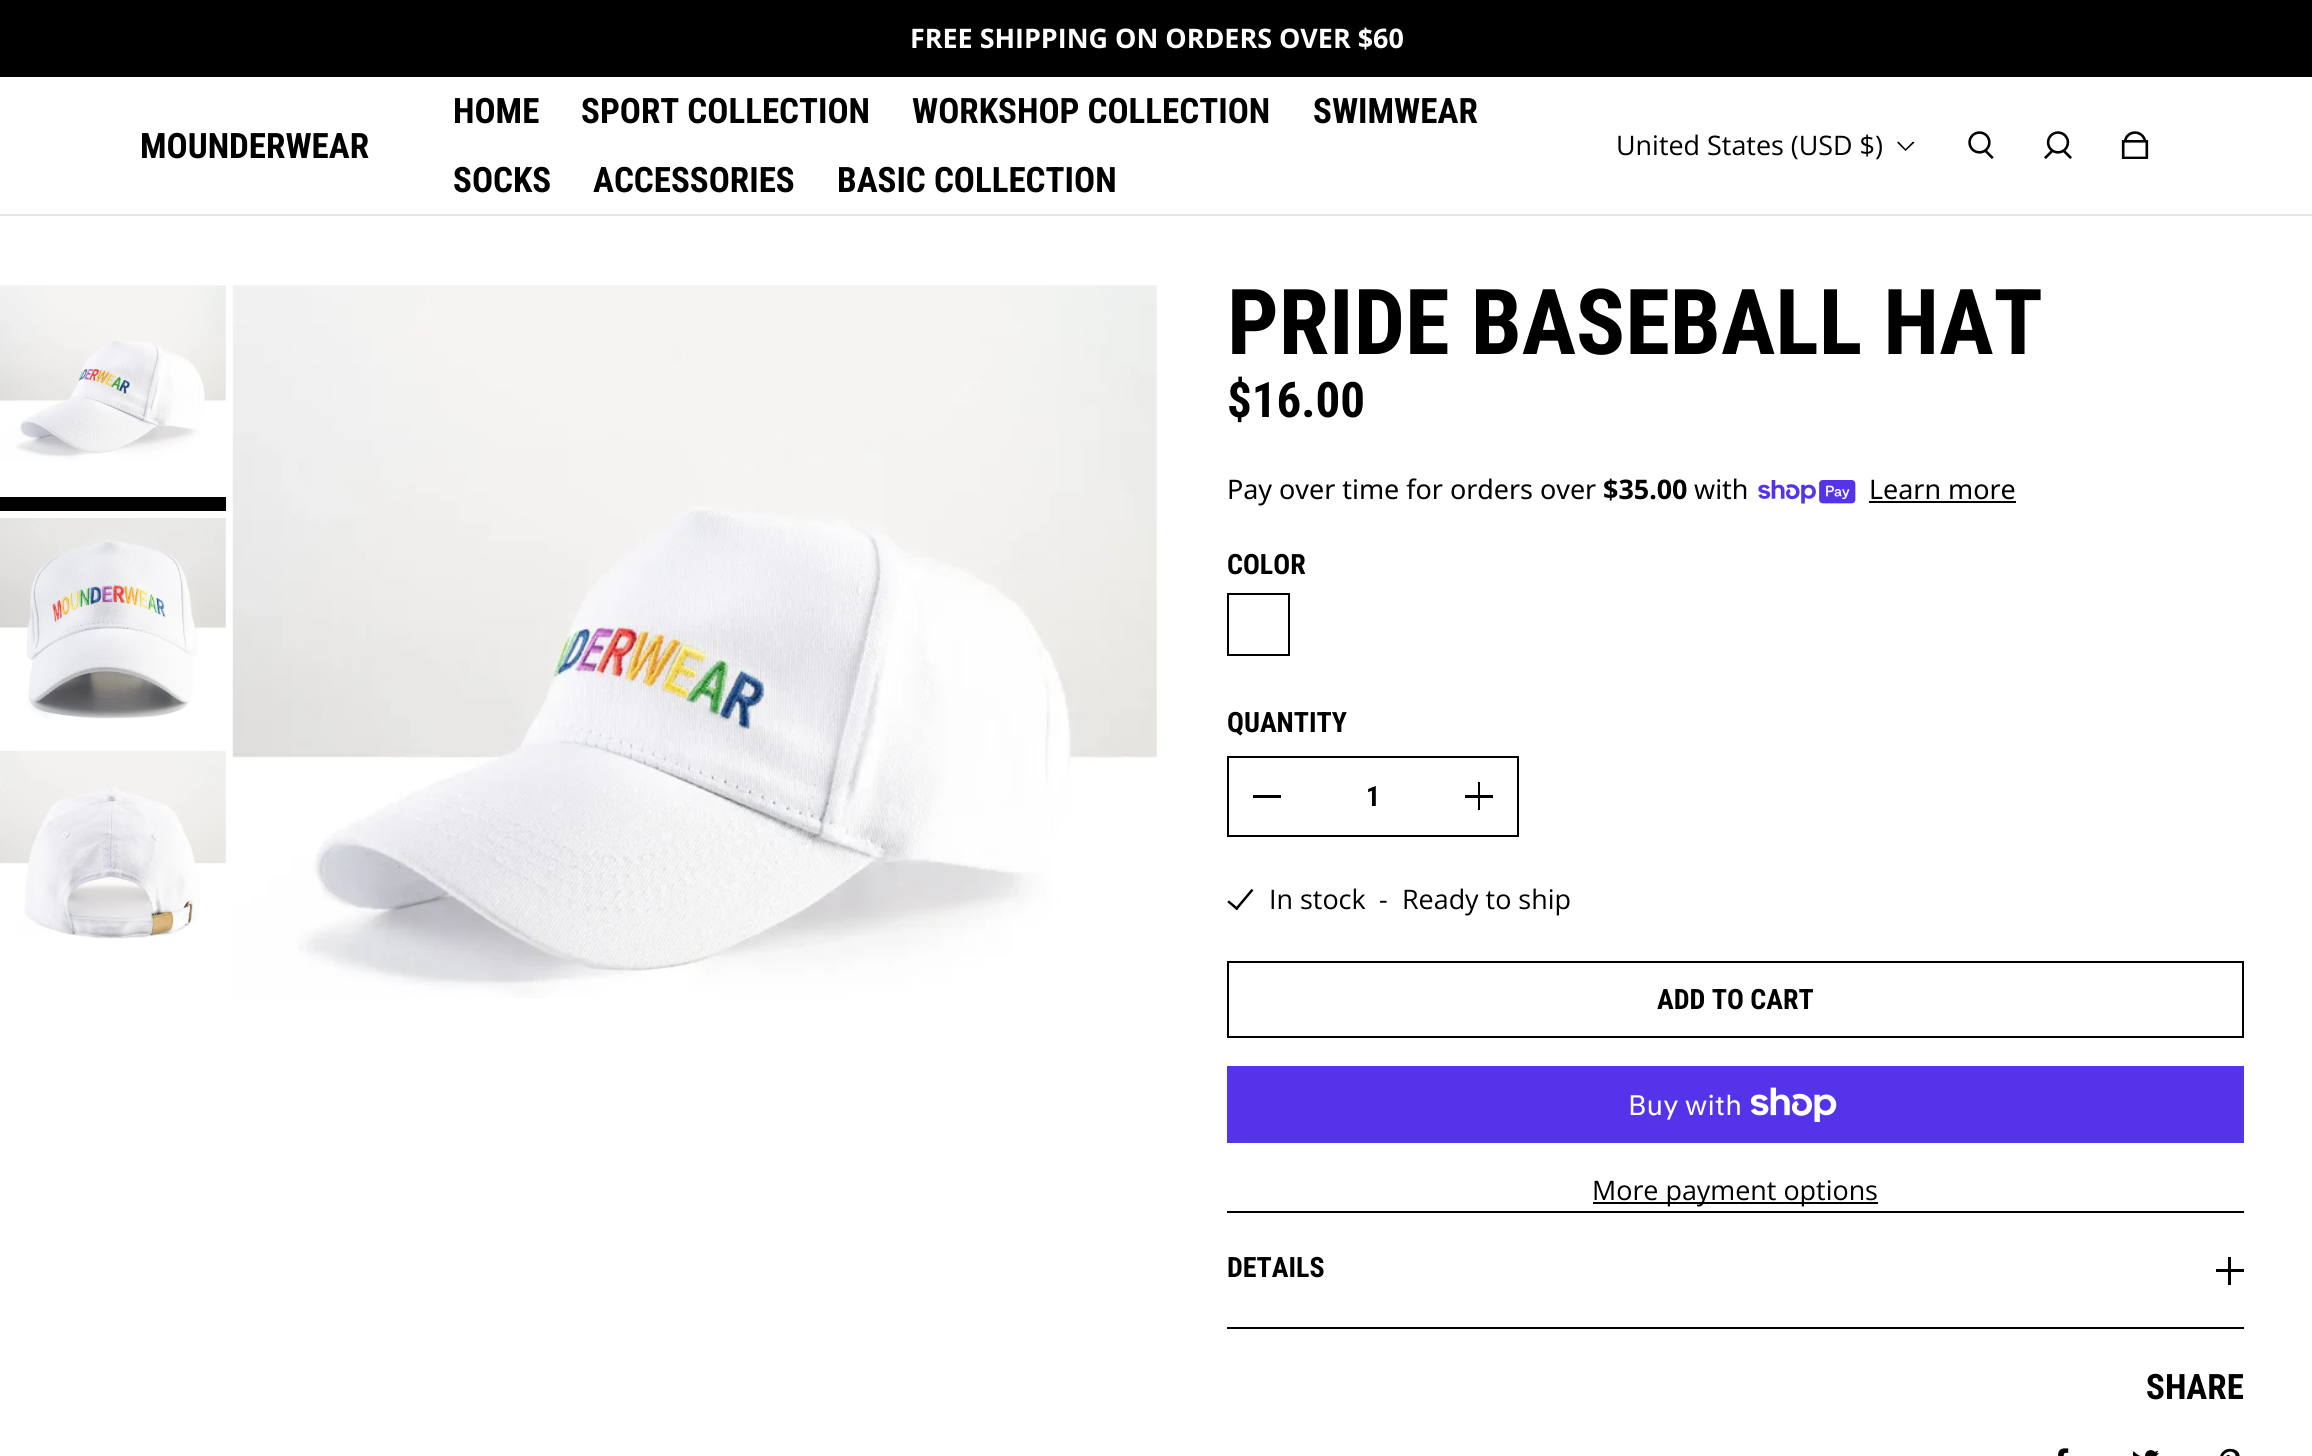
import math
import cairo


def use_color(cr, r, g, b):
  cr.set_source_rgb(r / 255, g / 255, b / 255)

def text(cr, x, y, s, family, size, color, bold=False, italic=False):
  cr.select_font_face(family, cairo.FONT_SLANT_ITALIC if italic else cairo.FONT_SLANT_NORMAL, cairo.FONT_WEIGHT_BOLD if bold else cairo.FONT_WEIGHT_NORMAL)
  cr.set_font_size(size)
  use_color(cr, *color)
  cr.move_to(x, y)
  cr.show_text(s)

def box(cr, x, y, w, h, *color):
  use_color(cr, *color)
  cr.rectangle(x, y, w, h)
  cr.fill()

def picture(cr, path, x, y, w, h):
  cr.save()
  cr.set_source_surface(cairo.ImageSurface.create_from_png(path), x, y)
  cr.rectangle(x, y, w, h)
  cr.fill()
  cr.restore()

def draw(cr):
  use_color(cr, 255, 255, 255)
  cr.paint()
  box(cr, 0, 0, 2312, 77, 0, 0, 0)
  box(cr, 0, 214, 2312, 2, 230, 230, 230)
  use_color(cr, 0, 0, 0)
  cr.set_fill_rule(cairo.FILL_RULE_EVEN_ODD)
  cr.new_path()
  cr.move_to(1905.5, 149)
  cr.line_to(1898.5, 141.5)
  cr.line_to(1897, 142.5)
  cr.line_to(1905.5, 151)
  cr.line_to(1914.5, 142.5)
  cr.line_to(1913, 141.5)
  cr.close_path()
  cr.fill()
  picture(cr, "img_01.png", 1968, 131, 26, 28)
  picture(cr, "img_02.png", 2044, 131, 28, 28)
  picture(cr, "img_03.png", 2121, 131, 28, 28)
  picture(cr, "img_04.png", 0, 285, 226, 175)
  box(cr, 0, 497, 226, 14, 0, 0, 0)
  picture(cr, "img_05.png", 0, 518, 226, 201)
  picture(cr, "img_06.png", 0, 750, 226, 189)
  picture(cr, "img_07.png", 232, 285, 925, 713)
  picture(cr, "img_08.png", 1758, 480, 98, 24)
  box(cr, 1869, 501, 147, 2, 0, 0, 0)
  cr.rectangle(1228, 594, 61, 61)
  cr.stroke()
  cr.rectangle(1228, 757, 290, 79)
  cr.stroke()
  box(cr, 1253, 795, 28, 3, 0, 0, 0)
  box(cr, 1465, 795, 28, 3, 0, 0, 0)
  box(cr, 1478, 782, 2, 28, 0, 0, 0)
  picture(cr, "img_09.png", 1227, 888, 27, 23)
  cr.rectangle(1228, 962, 1015, 75)
  cr.stroke()
  box(cr, 1227, 1066, 1017, 77, 84, 51, 235)
  picture(cr, "img_10.png", 1751, 1087, 86, 35)
  box(cr, 1593, 1202, 285, 2, 0, 0, 0)
  box(cr, 1227, 1211, 1017, 2, 0, 0, 0)
  box(cr, 1227, 1327, 1017, 2, 0, 0, 0)
  box(cr, 2216, 1269, 28, 3, 0, 0, 0)
  box(cr, 2228, 1257, 3, 28, 0, 0, 0)
  picture(cr, "img_11.png", 2058, 1448, 11, 8)
  picture(cr, "img_12.png", 2132, 1450, 27, 6)
  picture(cr, "img_13.png", 2220, 1448, 20, 8)
  text(cr, 910, 48, "FREE SHIPPING ON ORDERS OVER $60", "Open Sans", 26.9, (255, 255, 255), bold=True)
  text(cr, 140, 158, "MOUNDERWEAR", "Roboto Condensed", 35, (0, 0, 0), bold=True)
  text(cr, 453, 123, "HOME", "Roboto Condensed", 35, (0, 0, 0), bold=True)
  text(cr, 581, 123, "SPORT COLLECTION", "Roboto Condensed", 35, (0, 0, 0), bold=True)
  text(cr, 912, 123, "WORKSHOP COLLECTION", "Roboto Condensed", 35, (0, 0, 0), bold=True)
  text(cr, 1313, 123, "SWIMWEAR", "Roboto Condensed", 35, (0, 0, 0), bold=True)
  text(cr, 453, 192, "SOCKS", "Roboto Condensed", 35, (0, 0, 0), bold=True)
  text(cr, 593, 192, "ACCESSORIES", "Roboto Condensed", 35, (0, 0, 0), bold=True)
  text(cr, 837, 192, "BASIC COLLECTION", "Roboto Condensed", 35, (0, 0, 0), bold=True)
  text(cr, 1616, 155, "United States (USD $)", "Open Sans", 26.9, (0, 0, 0))
  text(cr, 1227, 354, "PRIDE BASEBALL HAT", "Roboto Condensed", 91, (0, 0, 0), bold=True)
  text(cr, 1227, 417, "$16.00", "Roboto Condensed", 49, (0, 0, 0), bold=True)
  text(cr, 1227, 499, "Pay over time for orders over", "Noto Sans", 26.9, (0, 0, 0))
  text(cr, 1603, 499, "$35.00", "Noto Sans", 26.9, (0, 0, 0), bold=True)
  text(cr, 1694, 499, "with", "Noto Sans", 26.9, (0, 0, 0))
  text(cr, 1869, 499, "Learn more", "Noto Sans", 26.9, (0, 0, 0))
  text(cr, 1227, 574, "COLOR", "Roboto Condensed", 28, (0, 0, 0), bold=True)
  text(cr, 1227, 732, "QUANTITY", "Roboto Condensed", 28, (0, 0, 0), bold=True)
  text(cr, 1366, 806, "1", "Roboto Condensed", 28, (0, 0, 0), bold=True)
  text(cr, 1269, 909, "In stock", "Open Sans", 26.9, (0, 0, 0))
  text(cr, 1379, 909, "-", "Open Sans", 26.9, (0, 0, 0))
  text(cr, 1402, 909, "Ready to ship", "Open Sans", 26.9, (0, 0, 0))
  text(cr, 1657, 1009, "ADD TO CART", "Roboto Condensed", 28, (0, 0, 0), bold=True)
  text(cr, 1628, 1115, "Buy with", "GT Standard", 28, (255, 255, 255))
  text(cr, 1592, 1200, "More payment options", "Open Sans", 26.9, (0, 0, 0))
  text(cr, 1227, 1277, "DETAILS", "Roboto Condensed", 28, (0, 0, 0), bold=True)
  text(cr, 2146, 1399, "SHARE", "Roboto Condensed", 35, (0, 0, 0), bold=True)


surface = cairo.ImageSurface(cairo.FORMAT_RGB24, 2312, 1456)
cr = cairo.Context(surface)
options = cairo.FontOptions()
options.set_hint_metrics(cairo.HINT_METRICS_OFF)
options.set_hint_style(cairo.HINT_STYLE_NONE)
cr.set_font_options(options)
cr.set_miter_limit(4)
draw(cr)
surface.write_to_png("out.png")
